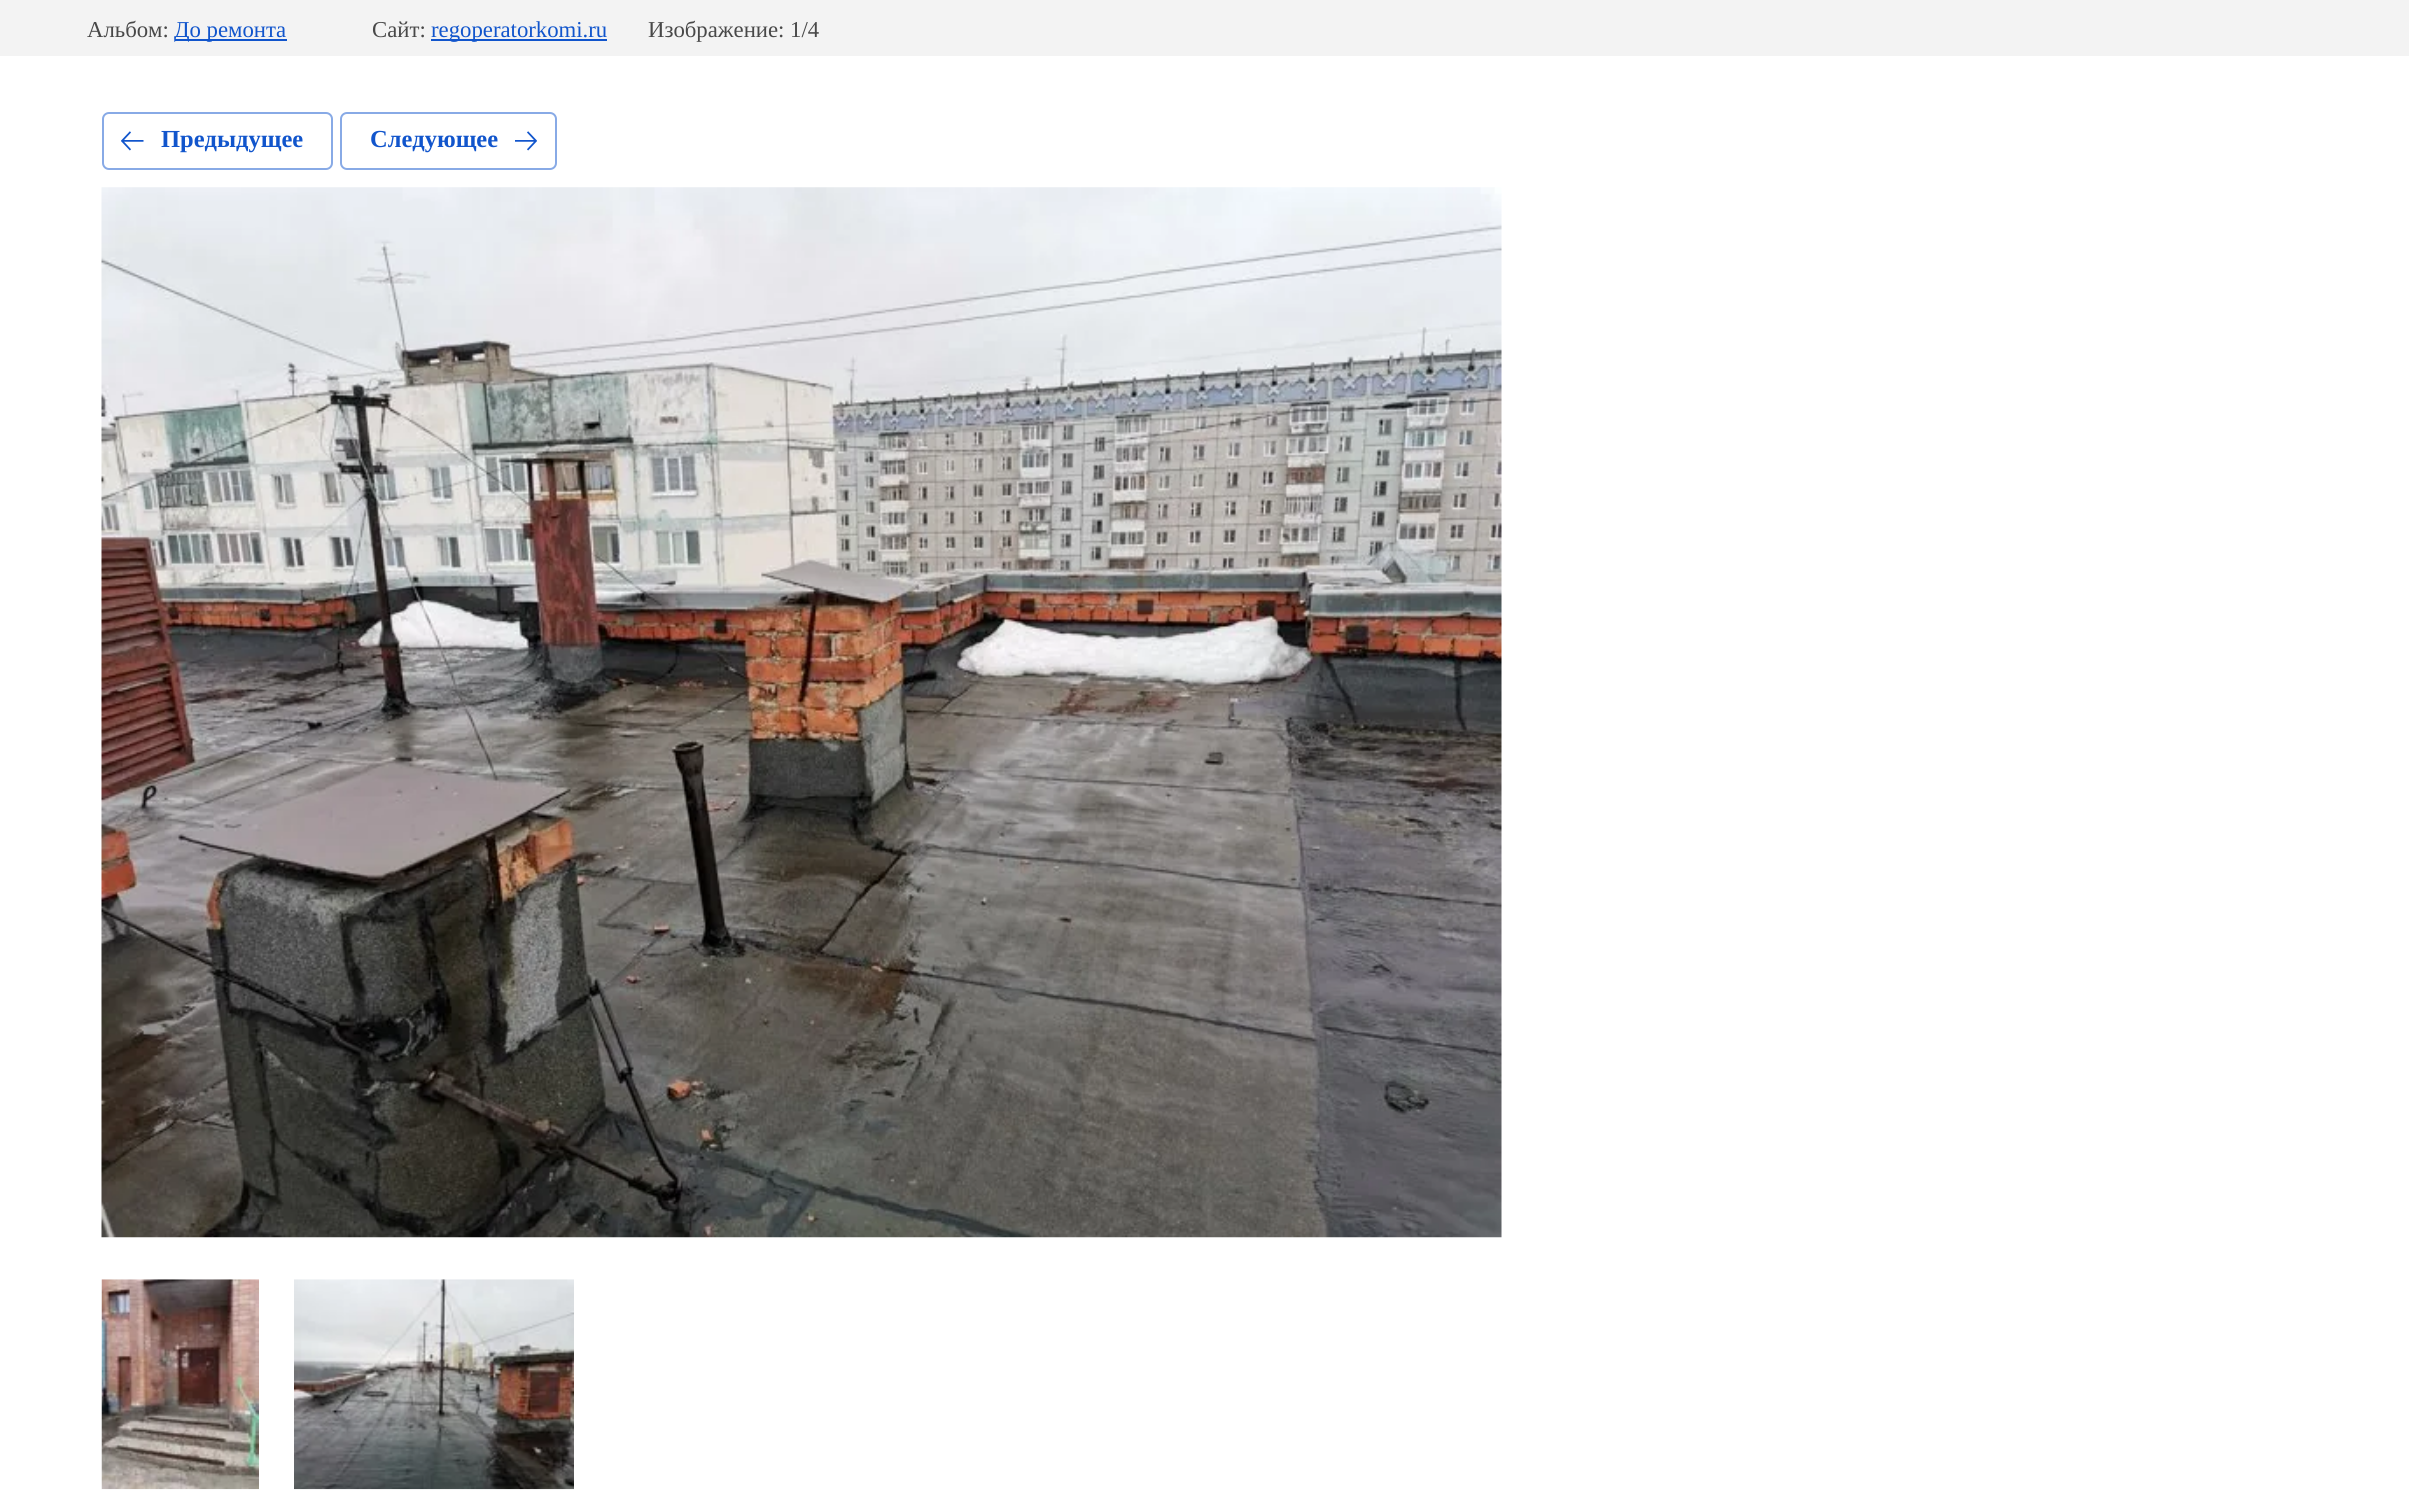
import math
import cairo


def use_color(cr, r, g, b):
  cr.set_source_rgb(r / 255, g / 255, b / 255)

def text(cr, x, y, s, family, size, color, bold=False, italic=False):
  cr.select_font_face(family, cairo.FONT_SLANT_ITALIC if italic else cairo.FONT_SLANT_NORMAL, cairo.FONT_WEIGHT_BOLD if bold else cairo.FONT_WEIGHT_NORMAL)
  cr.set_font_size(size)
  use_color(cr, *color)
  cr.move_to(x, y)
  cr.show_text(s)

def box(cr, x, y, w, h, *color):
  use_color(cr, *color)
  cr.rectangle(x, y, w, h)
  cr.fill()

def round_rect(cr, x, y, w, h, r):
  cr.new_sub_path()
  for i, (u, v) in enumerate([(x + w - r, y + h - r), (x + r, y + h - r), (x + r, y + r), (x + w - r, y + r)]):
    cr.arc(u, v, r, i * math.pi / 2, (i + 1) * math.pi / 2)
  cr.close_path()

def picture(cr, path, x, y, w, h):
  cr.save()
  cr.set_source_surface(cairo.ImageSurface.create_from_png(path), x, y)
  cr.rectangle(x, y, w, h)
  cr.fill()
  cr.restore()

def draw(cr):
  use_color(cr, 255, 255, 255)
  cr.paint()
  box(cr, 0, 0, 2409, 56, 243, 243, 243)
  box(cr, 175, 39, 112, 2, 17, 85, 204)
  box(cr, 431, 39, 176, 2, 17, 85, 204)
  round_rect(cr, 103, 113, 229, 56, 6)
  use_color(cr, 136, 170, 230)
  cr.stroke()
  picture(cr, "img_01.png", 121, 131, 23, 20)
  round_rect(cr, 341, 113, 215, 56, 6)
  cr.stroke()
  picture(cr, "img_02.png", 515, 131, 22, 20)
  picture(cr, "img_03.png", 101, 187, 1401, 1051)
  picture(cr, "img_04.png", 101, 1279, 158, 211)
  picture(cr, "img_05.png", 294, 1279, 280, 211)
  text(cr, 87, 37, "Альбом:", "Liberation Serif", 22.75, (72, 72, 72))
  text(cr, 174, 37, "До ремонта", "Liberation Serif", 22.75, (17, 85, 204))
  text(cr, 372, 37, "Сайт:", "Liberation Serif", 22.75, (72, 72, 72))
  text(cr, 431, 37, "regoperatorkomi.ru", "Liberation Serif", 22.75, (17, 85, 204))
  text(cr, 648, 37, "Изображение: 1/4", "Liberation Serif", 22.75, (72, 72, 72))
  text(cr, 161, 147, "Предыдущее", "Liberation Serif", 24.5, (17, 85, 204), bold=True)
  text(cr, 370, 147, "Следующее", "Liberation Serif", 24.5, (17, 85, 204), bold=True)


surface = cairo.ImageSurface(cairo.FORMAT_RGB24, 2409, 1508)
cr = cairo.Context(surface)
options = cairo.FontOptions()
options.set_hint_metrics(cairo.HINT_METRICS_OFF)
options.set_hint_style(cairo.HINT_STYLE_NONE)
cr.set_font_options(options)
cr.set_miter_limit(4)
draw(cr)
surface.write_to_png("out.png")
